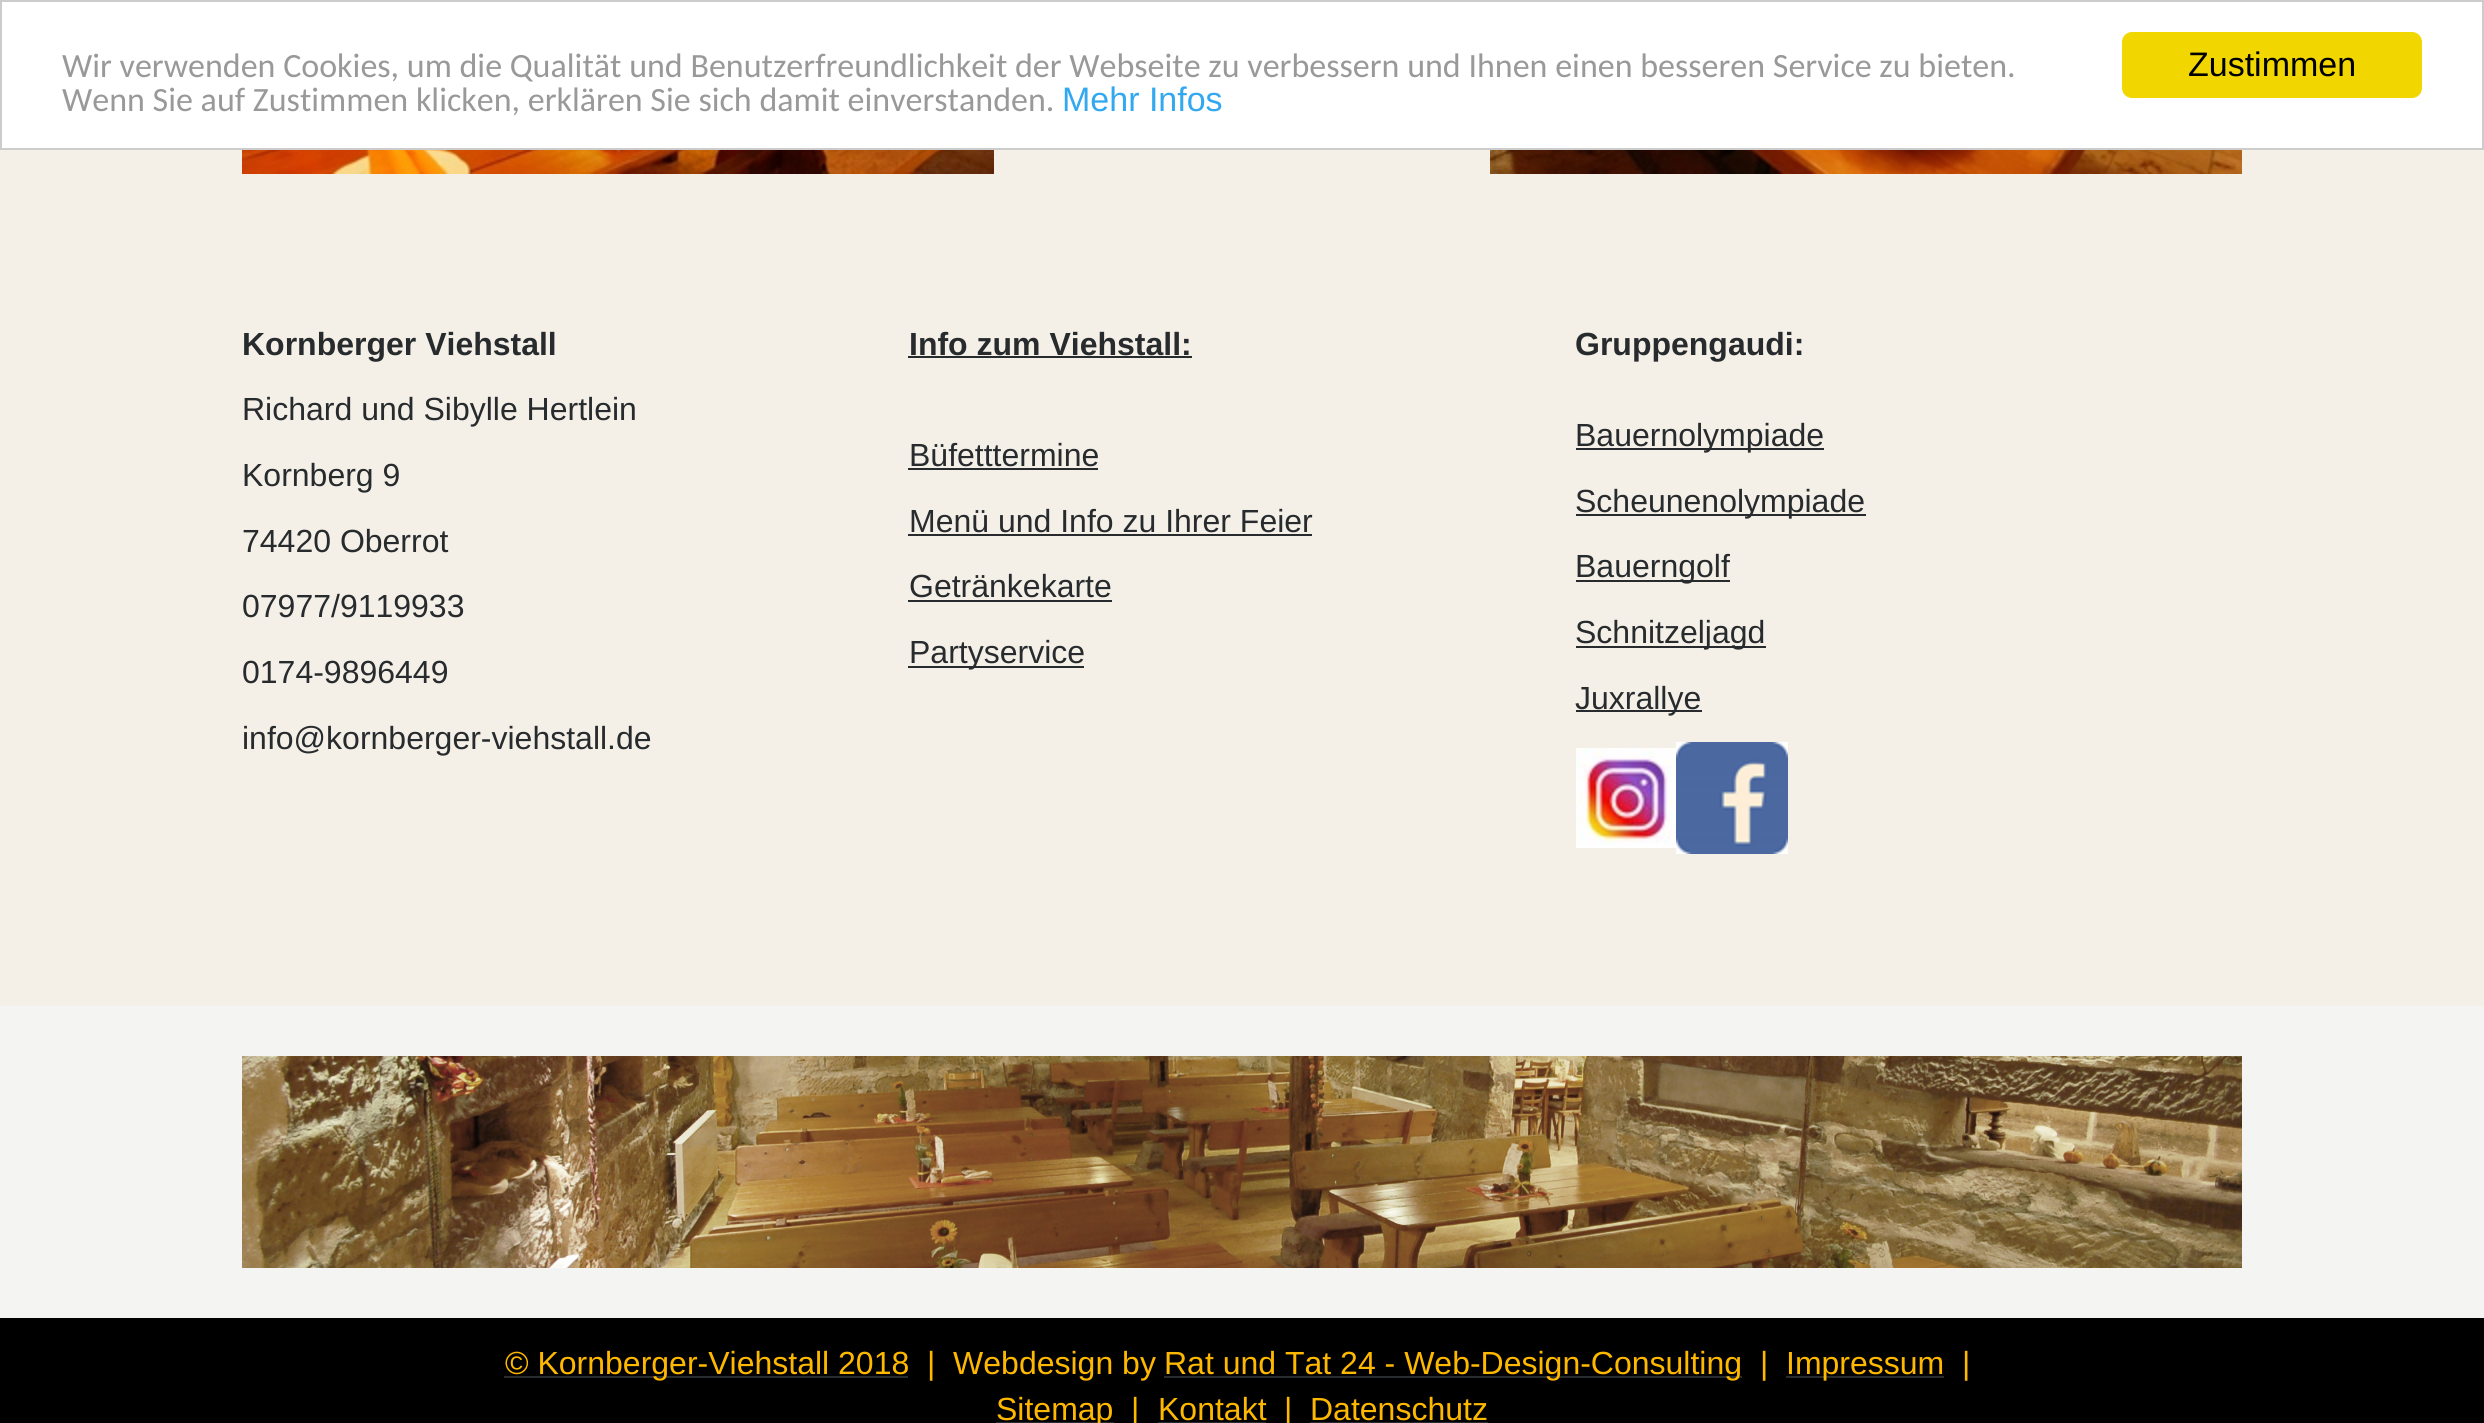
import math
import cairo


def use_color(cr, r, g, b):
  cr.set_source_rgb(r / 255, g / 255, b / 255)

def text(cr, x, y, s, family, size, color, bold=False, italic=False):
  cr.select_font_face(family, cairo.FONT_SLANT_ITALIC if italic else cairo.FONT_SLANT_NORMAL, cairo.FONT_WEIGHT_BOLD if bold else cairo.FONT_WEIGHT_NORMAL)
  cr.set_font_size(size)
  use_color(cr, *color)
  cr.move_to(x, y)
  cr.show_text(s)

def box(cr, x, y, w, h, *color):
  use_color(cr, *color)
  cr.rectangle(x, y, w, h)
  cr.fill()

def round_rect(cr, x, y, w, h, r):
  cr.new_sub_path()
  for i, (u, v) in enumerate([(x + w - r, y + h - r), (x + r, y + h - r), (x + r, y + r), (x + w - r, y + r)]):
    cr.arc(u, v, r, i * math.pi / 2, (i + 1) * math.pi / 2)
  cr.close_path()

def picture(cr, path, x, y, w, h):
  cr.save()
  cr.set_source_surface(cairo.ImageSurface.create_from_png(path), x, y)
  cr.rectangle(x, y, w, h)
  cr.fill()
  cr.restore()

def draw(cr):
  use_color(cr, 244, 240, 232)
  cr.paint()
  use_color(cr, 255, 255, 255)
  cr.rectangle(1, 1, 2482, 148)
  cr.fill_preserve()
  use_color(cr, 204, 204, 204)
  cr.stroke()
  use_color(cr, 241, 214, 0)
  round_rect(cr, 2122, 32, 300, 66, 10)
  cr.fill()
  picture(cr, "img_01.png", 242, 150, 752, 24)
  picture(cr, "img_02.png", 1490, 150, 752, 24)
  box(cr, 908, 356, 284, 2, 40, 43, 45)
  box(cr, 908, 468, 190, 2, 40, 43, 45)
  box(cr, 908, 534, 404, 2, 40, 43, 45)
  box(cr, 908, 600, 204, 2, 40, 43, 45)
  box(cr, 908, 666, 176, 2, 40, 43, 45)
  box(cr, 1576, 448, 248, 2, 40, 43, 45)
  box(cr, 1576, 514, 290, 2, 40, 43, 45)
  box(cr, 1576, 580, 154, 2, 40, 43, 45)
  box(cr, 1576, 646, 190, 2, 40, 43, 45)
  box(cr, 1576, 710, 126, 2, 40, 43, 45)
  picture(cr, "img_03.png", 1576, 748, 100, 100)
  picture(cr, "img_04.png", 1676, 742, 112, 112)
  box(cr, 0, 1006, 2484, 312, 244, 244, 243)
  picture(cr, "img_05.png", 242, 1056, 2000, 212)
  box(cr, 0, 1318, 2484, 105, 0, 0, 0)
  box(cr, 504, 1376, 404, 2, 40, 43, 45)
  box(cr, 1164, 1376, 578, 2, 40, 43, 45)
  box(cr, 1786, 1376, 158, 2, 40, 43, 45)
  box(cr, 996, 1422, 118, 1, 40, 43, 45)
  box(cr, 1158, 1422, 108, 1, 40, 43, 45)
  box(cr, 1310, 1422, 178, 1, 40, 43, 45)
  text(cr, 62, 77, "Wir verwenden Cookies, um die Qualität und Benutzerfreundlichkeit der Webseite zu verbessern und Ihnen einen besseren Service zu bieten.", "Carlito", 34, (153, 153, 153))
  text(cr, 62, 111, "Wenn Sie auf Zustimmen klicken, erklären Sie sich damit einverstanden.", "Carlito", 34, (153, 153, 153))
  text(cr, 1062, 111, "Mehr Infos", "Liberation Sans", 34, (49, 168, 240))
  text(cr, 2188, 76, "Zustimmen", "Liberation Sans", 34, (0, 0, 0))
  text(cr, 242, 355, "Kornberger Viehstall", "Liberation Sans", 32, (40, 43, 45), bold=True)
  text(cr, 242, 420, "Richard und Sibylle Hertlein", "Liberation Sans", 32, (40, 43, 45))
  text(cr, 242, 486, "Kornberg 9", "Liberation Sans", 32, (40, 43, 45))
  text(cr, 242, 552, "74420 Oberrot", "Liberation Sans", 32, (40, 43, 45))
  text(cr, 242, 617, "07977/9119933", "Liberation Sans", 32, (40, 43, 45))
  text(cr, 242, 683, "0174-9896449", "Liberation Sans", 32, (40, 43, 45))
  text(cr, 242, 749, "info@kornberger-viehstall.de", "Liberation Sans", 32, (40, 43, 45))
  text(cr, 909, 355, "Info zum Viehstall:", "Liberation Sans", 32, (40, 43, 45), bold=True)
  text(cr, 909, 466, "Büfetttermine", "Liberation Sans", 32, (40, 43, 45))
  text(cr, 909, 532, "Menü und Info zu Ihrer Feier", "Liberation Sans", 32, (40, 43, 45))
  text(cr, 909, 597, "Getränkekarte", "Liberation Sans", 32, (40, 43, 45))
  text(cr, 909, 663, "Partyservice", "Liberation Sans", 32, (40, 43, 45))
  text(cr, 1575, 355, "Gruppengaudi:", "Liberation Sans", 32, (40, 43, 45), bold=True)
  text(cr, 1575, 446, "Bauernolympiade", "Liberation Sans", 32, (40, 43, 45))
  text(cr, 1575, 512, "Scheunenolympiade", "Liberation Sans", 32, (40, 43, 45))
  text(cr, 1575, 577, "Bauerngolf", "Liberation Sans", 32, (40, 43, 45))
  text(cr, 1575, 643, "Schnitzeljagd", "Liberation Sans", 32, (40, 43, 45))
  text(cr, 1575, 709, "Juxrallye", "Liberation Sans", 32, (40, 43, 45))
  text(cr, 505, 1374, "© Kornberger-Viehstall 2018", "Liberation Sans", 32, (255, 184, 0))
  text(cr, 927, 1374, "|  Webdesign by", "Liberation Sans", 32, (255, 184, 0))
  text(cr, 1164, 1374, "Rat und Tat 24 - Web-Design-Consulting", "Liberation Sans", 32, (255, 184, 0))
  text(cr, 1760, 1374, "|", "Liberation Sans", 32, (255, 184, 0))
  text(cr, 1786, 1374, "Impressum", "Liberation Sans", 32, (255, 184, 0))
  text(cr, 1962, 1374, "|", "Liberation Sans", 32, (255, 184, 0))
  text(cr, 996, 1420, "Sitemap", "Liberation Sans", 32, (255, 184, 0))
  text(cr, 1131, 1420, "|", "Liberation Sans", 32, (255, 184, 0))
  text(cr, 1158, 1420, "Kontakt", "Liberation Sans", 32, (255, 184, 0))
  text(cr, 1284, 1420, "|", "Liberation Sans", 32, (255, 184, 0))
  text(cr, 1310, 1420, "Datenschutz", "Liberation Sans", 32, (255, 184, 0))


surface = cairo.ImageSurface(cairo.FORMAT_RGB24, 2484, 1423)
cr = cairo.Context(surface)
options = cairo.FontOptions()
options.set_hint_metrics(cairo.HINT_METRICS_OFF)
options.set_hint_style(cairo.HINT_STYLE_NONE)
cr.set_font_options(options)
cr.set_miter_limit(4)
draw(cr)
surface.write_to_png("out.png")
